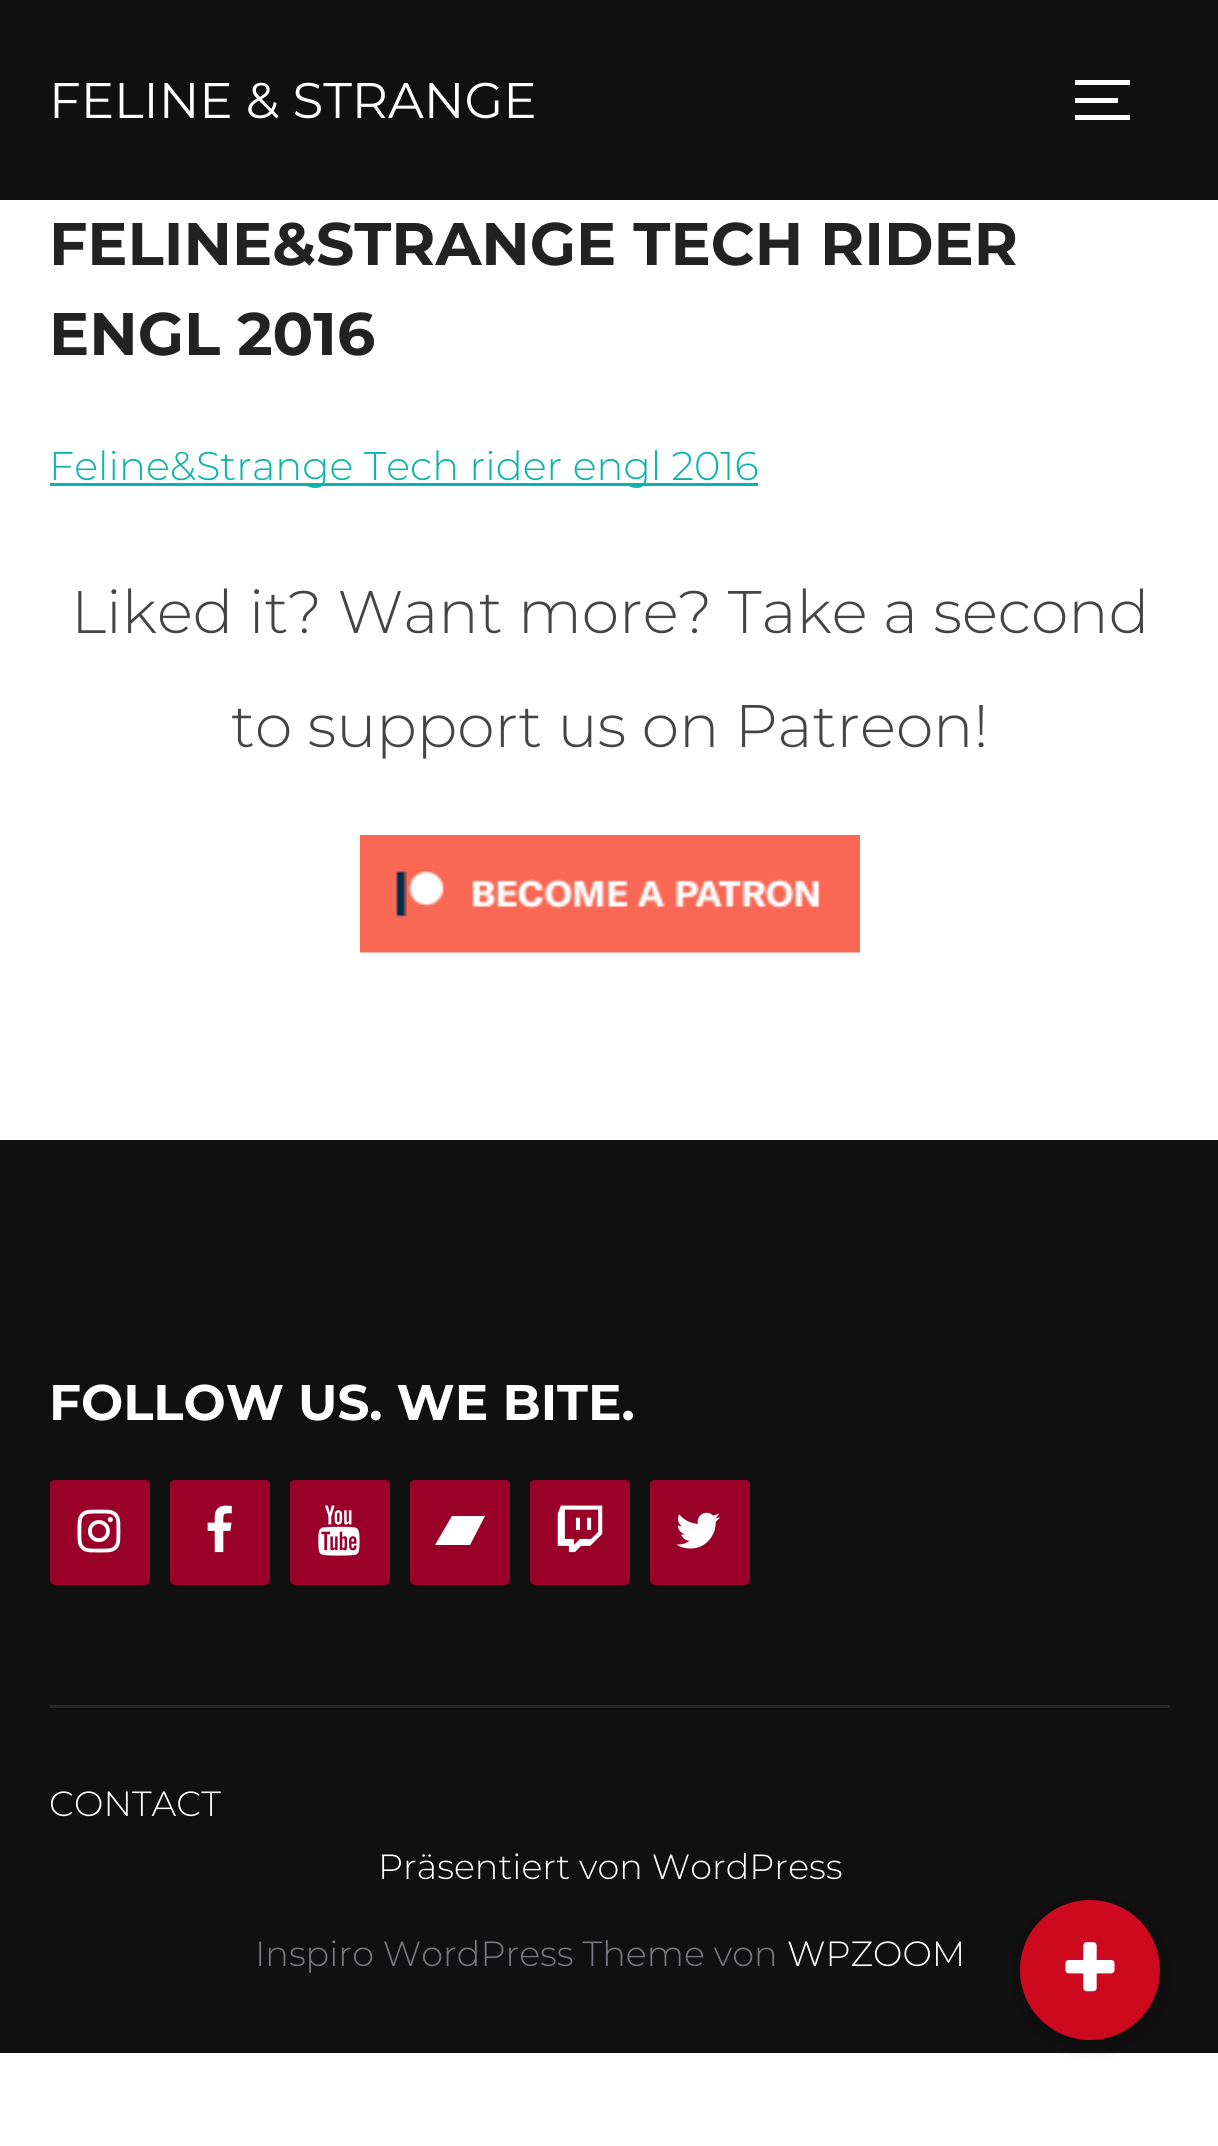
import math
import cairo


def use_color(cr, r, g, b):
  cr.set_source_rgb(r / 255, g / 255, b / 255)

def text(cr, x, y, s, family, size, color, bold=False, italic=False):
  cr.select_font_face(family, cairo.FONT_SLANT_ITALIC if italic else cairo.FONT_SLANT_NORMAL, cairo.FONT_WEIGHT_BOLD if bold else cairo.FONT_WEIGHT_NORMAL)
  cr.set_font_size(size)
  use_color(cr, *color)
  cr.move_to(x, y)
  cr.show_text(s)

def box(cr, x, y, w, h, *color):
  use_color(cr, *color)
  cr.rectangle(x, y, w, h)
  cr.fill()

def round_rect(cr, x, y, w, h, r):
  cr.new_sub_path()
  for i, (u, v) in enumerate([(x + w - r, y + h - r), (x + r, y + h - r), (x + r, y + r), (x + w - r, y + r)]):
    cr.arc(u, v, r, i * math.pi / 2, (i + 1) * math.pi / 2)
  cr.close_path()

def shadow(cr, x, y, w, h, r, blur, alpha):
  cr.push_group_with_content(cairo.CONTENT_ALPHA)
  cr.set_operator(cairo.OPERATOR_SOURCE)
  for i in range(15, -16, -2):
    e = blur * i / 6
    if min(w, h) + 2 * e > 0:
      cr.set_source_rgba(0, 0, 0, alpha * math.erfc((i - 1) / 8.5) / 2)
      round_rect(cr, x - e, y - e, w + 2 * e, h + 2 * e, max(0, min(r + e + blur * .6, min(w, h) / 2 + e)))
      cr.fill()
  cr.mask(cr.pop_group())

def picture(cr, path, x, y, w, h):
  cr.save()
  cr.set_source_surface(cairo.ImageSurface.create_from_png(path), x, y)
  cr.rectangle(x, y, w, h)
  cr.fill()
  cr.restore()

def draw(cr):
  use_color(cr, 255, 255, 255)
  cr.paint()
  box(cr, 0, 0, 1218, 200, 16, 16, 16)
  box(cr, 1075, 80, 55, 5, 255, 255, 255)
  box(cr, 1075, 98, 43, 5, 255, 255, 255)
  box(cr, 1075, 115, 55, 5, 255, 255, 255)
  box(cr, 50, 483, 708, 3, 11, 180, 170)
  picture(cr, "img_01.png", 360, 835, 500, 118)
  box(cr, 0, 1140, 1218, 913, 16, 16, 16)
  use_color(cr, 153, 1, 41)
  round_rect(cr, 50, 1480, 100, 105, 5)
  cr.fill()
  picture(cr, "img_02.png", 77, 1509, 44, 44)
  round_rect(cr, 170, 1480, 100, 105, 5)
  cr.fill()
  picture(cr, "img_03.png", 207, 1505, 25, 48)
  round_rect(cr, 290, 1480, 100, 105, 5)
  cr.fill()
  picture(cr, "img_04.png", 318, 1505, 42, 51)
  round_rect(cr, 410, 1480, 100, 105, 5)
  cr.fill()
  use_color(cr, 255, 255, 255)
  cr.new_path()
  cr.move_to(435, 1545)
  cr.line_to(470, 1545)
  cr.line_to(485, 1516)
  cr.line_to(452, 1516)
  cr.close_path()
  cr.fill()
  use_color(cr, 153, 1, 41)
  round_rect(cr, 530, 1480, 100, 105, 5)
  cr.fill()
  picture(cr, "img_05.png", 557, 1505, 46, 48)
  round_rect(cr, 650, 1480, 100, 105, 5)
  cr.fill()
  picture(cr, "img_06.png", 676, 1512, 44, 37)
  box(cr, 50, 1705, 1120, 3, 40, 40, 40)
  use_color(cr, 0, 0, 0)
  shadow(cr, 1018, 1903, 145, 145, 72.5, 7.5, 0.2)
  use_color(cr, 204, 9, 30)
  cr.arc(1090, 1970, 70, 0, 2 * math.pi)
  cr.fill()
  picture(cr, "img_07.png", 1065, 1942, 50, 50)
  text(cr, 49, 118, "FELINE & STRANGE", "Montserrat", 50, (255, 255, 255))
  text(cr, 49, 265, "FELINE&STRANGE TECH RIDER", "Montserrat", 60, (34, 34, 34), bold=True)
  text(cr, 49, 355, "ENGL 2016", "Montserrat", 60, (34, 34, 34), bold=True)
  text(cr, 49, 480, "Feline&Strange Tech rider engl 2016", "Montserrat Light", 40, (11, 180, 170))
  text(cr, 71, 633, "Liked it? Want more? Take a second", "Montserrat Light", 60, (68, 68, 68))
  text(cr, 231, 747, "to support us on Patreon!", "Montserrat Light", 60, (68, 68, 68))
  text(cr, 49, 1420, "FOLLOW US. WE BITE.", "Montserrat", 50, (255, 255, 255), bold=True)
  text(cr, 49, 1816, "CONTACT", "Montserrat Light", 35, (255, 255, 255))
  text(cr, 378, 1879, "Präsentiert von WordPress", "Montserrat Light", 35, (255, 255, 255))
  text(cr, 255, 1966, "Inspiro WordPress Theme von", "Montserrat Light", 35, (120, 120, 127))
  text(cr, 787, 1966, "WPZOOM", "Montserrat Light", 35, (255, 255, 255))


surface = cairo.ImageSurface(cairo.FORMAT_RGB24, 1218, 2146)
cr = cairo.Context(surface)
options = cairo.FontOptions()
options.set_hint_metrics(cairo.HINT_METRICS_OFF)
options.set_hint_style(cairo.HINT_STYLE_NONE)
cr.set_font_options(options)
cr.set_miter_limit(4)
draw(cr)
surface.write_to_png("out.png")
